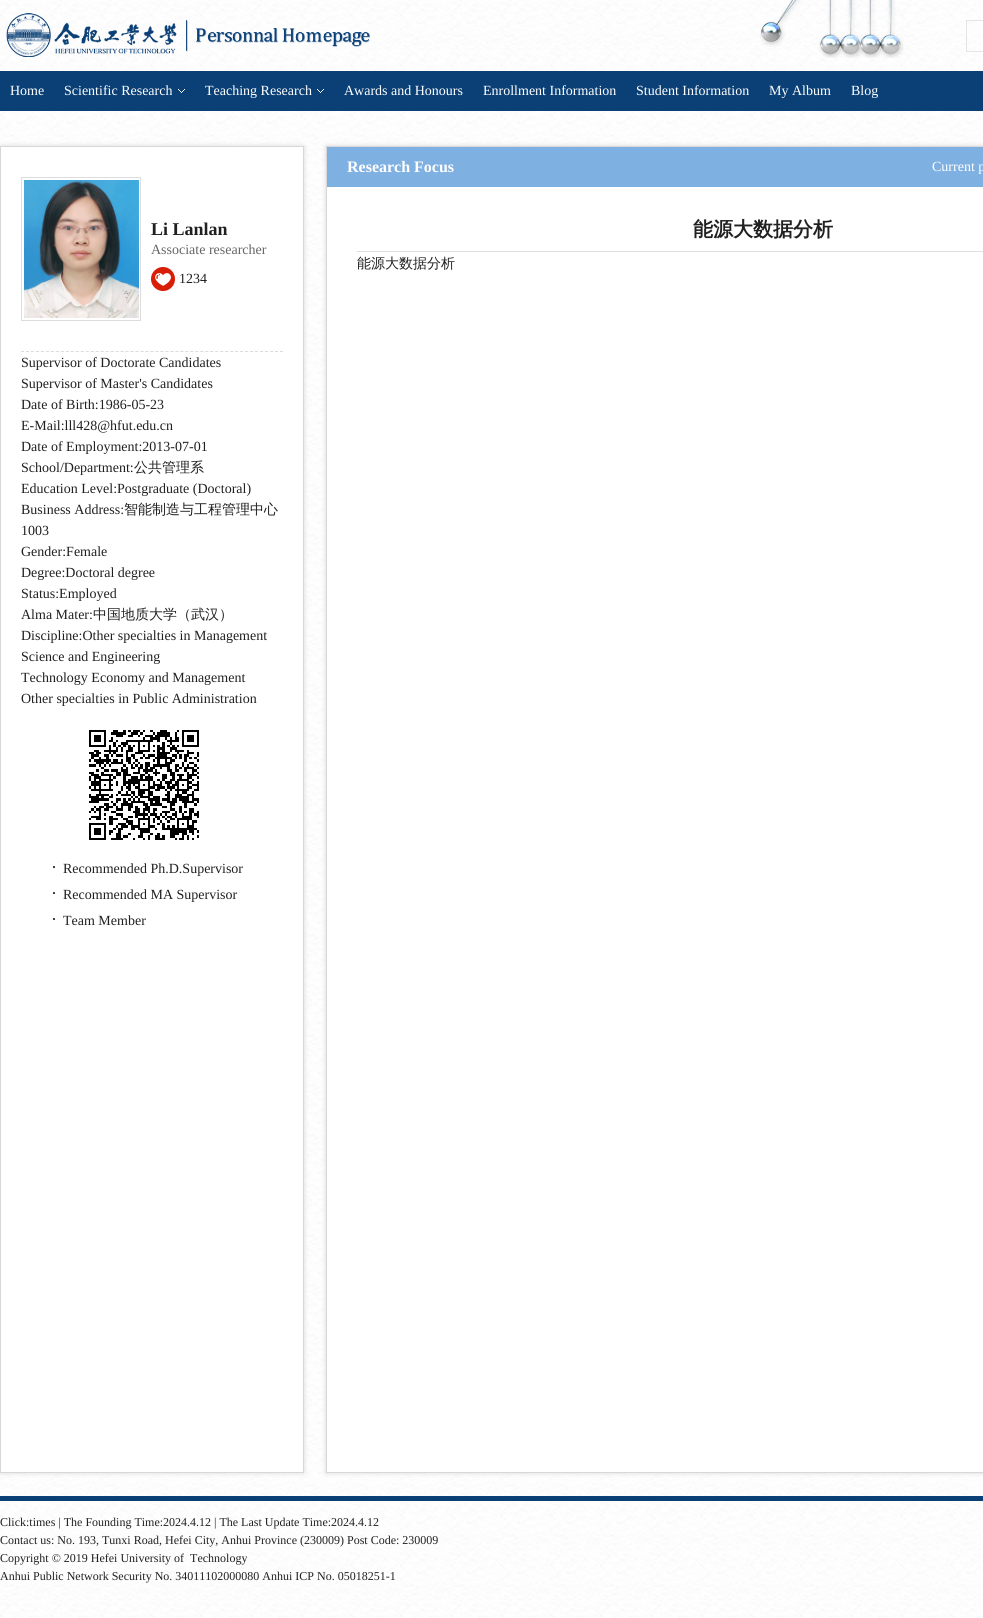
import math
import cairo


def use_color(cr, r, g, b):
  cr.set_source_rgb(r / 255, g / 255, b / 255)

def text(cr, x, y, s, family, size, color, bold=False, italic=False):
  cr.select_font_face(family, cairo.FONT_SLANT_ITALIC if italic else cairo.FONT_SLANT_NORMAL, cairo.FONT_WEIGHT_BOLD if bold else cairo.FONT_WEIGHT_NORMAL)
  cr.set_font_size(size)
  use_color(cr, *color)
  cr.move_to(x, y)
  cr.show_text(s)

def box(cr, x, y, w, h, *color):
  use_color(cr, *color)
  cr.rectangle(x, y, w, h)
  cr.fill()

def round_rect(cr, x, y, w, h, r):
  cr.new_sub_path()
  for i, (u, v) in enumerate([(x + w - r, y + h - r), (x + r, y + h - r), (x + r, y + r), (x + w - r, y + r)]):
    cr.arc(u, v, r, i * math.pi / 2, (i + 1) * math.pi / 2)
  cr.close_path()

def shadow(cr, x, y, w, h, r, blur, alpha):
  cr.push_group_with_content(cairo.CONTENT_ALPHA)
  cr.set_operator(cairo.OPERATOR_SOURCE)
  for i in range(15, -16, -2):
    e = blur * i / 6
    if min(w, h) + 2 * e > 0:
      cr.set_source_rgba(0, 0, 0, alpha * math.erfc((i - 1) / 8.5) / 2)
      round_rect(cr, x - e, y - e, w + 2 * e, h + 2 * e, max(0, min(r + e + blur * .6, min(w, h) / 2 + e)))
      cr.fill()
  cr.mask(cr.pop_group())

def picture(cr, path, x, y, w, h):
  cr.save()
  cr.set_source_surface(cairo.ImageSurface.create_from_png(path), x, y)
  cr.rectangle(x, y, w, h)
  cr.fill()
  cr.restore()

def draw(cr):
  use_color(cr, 255, 255, 255)
  cr.paint()
  picture(cr, "img_01.png", 0, 0, 981, 1618)
  picture(cr, "img_02.png", 6, 13, 365, 44)
  picture(cr, "img_03.png", 760, 0, 144, 58)
  cr.rectangle(966.5, 20.5, 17, 31)
  use_color(cr, 228, 228, 227)
  cr.set_line_width(1)
  cr.stroke()
  box(cr, 0, 71, 983, 40, 11, 64, 118)
  picture(cr, "img_04.png", 178, 89, 7, 4)
  picture(cr, "img_04.png", 317, 89, 7, 4)
  use_color(cr, 216, 216, 216)
  shadow(cr, 0, 146, 304, 1327, 0, 2.5, 1)
  use_color(cr, 255, 255, 255)
  cr.rectangle(0.5, 146.5, 303, 1326)
  cr.fill_preserve()
  use_color(cr, 216, 216, 216)
  cr.stroke()
  cr.new_path()
  cr.move_to(21, 351.5)
  cr.line_to(283, 351.5)
  use_color(cr, 220, 220, 220)
  cr.set_dash([3, 1.98])
  cr.stroke()
  cr.rectangle(21.5, 177.5, 119, 143)
  cr.set_dash([])
  cr.stroke()
  picture(cr, "img_05.png", 24, 180, 115, 138)
  picture(cr, "img_06.png", 151, 267, 24, 24)
  picture(cr, "img_07.png", 89, 730, 110, 110)
  use_color(cr, 216, 216, 216)
  shadow(cr, 326, 146, 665, 1327, 0, 2.5, 1)
  box(cr, 327, 187, 656, 1285, 255, 255, 255)
  cr.rectangle(326.5, 146.5, 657, 1326)
  use_color(cr, 216, 216, 216)
  cr.stroke()
  box(cr, 327, 147, 656, 40, 126, 176, 226)
  box(cr, 357, 251, 626, 1, 223, 223, 223)
  box(cr, 0, 1496, 983, 5, 11, 64, 118)
  text(cr, 10, 95, "Home", "Liberation Serif", 14, (255, 255, 255))
  text(cr, 64, 95, "Scientific Research", "Liberation Serif", 14, (255, 255, 255))
  text(cr, 205, 95, "Teaching Research", "Liberation Serif", 14, (255, 255, 255))
  text(cr, 344, 95, "Awards and Honours", "Liberation Serif", 14, (255, 255, 255))
  text(cr, 483, 95, "Enrollment Information", "Liberation Serif", 14, (255, 255, 255))
  text(cr, 636, 95, "Student Information", "Liberation Serif", 14, (255, 255, 255))
  text(cr, 769, 95, "My Album", "Liberation Serif", 14, (255, 255, 255))
  text(cr, 851, 95, "Blog", "Liberation Serif", 14, (255, 255, 255))
  text(cr, 151, 235, "Li Lanlan", "Liberation Serif", 18, (32, 32, 32), bold=True)
  text(cr, 151, 254, "Associate researcher", "Liberation Serif", 14, (102, 102, 102))
  text(cr, 179, 283, "1234", "Liberation Serif", 14, (32, 32, 32))
  text(cr, 21, 367, "Supervisor of Doctorate Candidates", "Liberation Serif", 14, (32, 32, 32))
  text(cr, 21, 388, "Supervisor of Master's Candidates", "Liberation Serif", 14, (32, 32, 32))
  text(cr, 21, 409, "Date of Birth:1986-05-23", "Liberation Serif", 14, (32, 32, 32))
  text(cr, 21, 430, "E-Mail:lll428@hfut.edu.cn", "Liberation Serif", 14, (32, 32, 32))
  text(cr, 21, 451, "Date of Employment:2013-07-01", "Liberation Serif", 14, (32, 32, 32))
  text(cr, 21, 472, "School/Department:", "Liberation Serif", 14, (32, 32, 32))
  text(cr, 134, 472, "公共管理系", "WenQuanYi Zen Hei Medium", 14, (32, 32, 32))
  text(cr, 21, 493, "Education Level:Postgraduate (Doctoral)", "Liberation Serif", 14, (32, 32, 32))
  text(cr, 21, 514, "Business Address:", "Liberation Serif", 14, (32, 32, 32))
  text(cr, 124, 514, "智能制造与工程管理中心", "WenQuanYi Zen Hei Medium", 14, (32, 32, 32))
  text(cr, 21, 535, "1003", "Liberation Serif", 14, (32, 32, 32))
  text(cr, 21, 556, "Gender:Female", "Liberation Serif", 14, (32, 32, 32))
  text(cr, 21, 577, "Degree:Doctoral degree", "Liberation Serif", 14, (32, 32, 32))
  text(cr, 21, 598, "Status:Employed", "Liberation Serif", 14, (32, 32, 32))
  text(cr, 21, 619, "Alma Mater:", "Liberation Serif", 14, (32, 32, 32))
  text(cr, 93, 619, "中国地质大学（武汉）", "WenQuanYi Zen Hei Medium", 14, (32, 32, 32))
  text(cr, 21, 640, "Discipline:Other specialties in Management", "Liberation Serif", 14, (32, 32, 32))
  text(cr, 21, 661, "Science and Engineering", "Liberation Serif", 14, (32, 32, 32))
  text(cr, 21, 682, "Technology Economy and Management", "Liberation Serif", 14, (32, 32, 32))
  text(cr, 21, 703, "Other specialties in Public Administration", "Liberation Serif", 14, (32, 32, 32))
  text(cr, 51, 873, "·", "Liberation Serif", 18, (32, 32, 32))
  text(cr, 63, 873, "Recommended Ph.D.Supervisor", "Liberation Serif", 14, (32, 32, 32))
  text(cr, 51, 899, "·", "Liberation Serif", 18, (32, 32, 32))
  text(cr, 63, 899, "Recommended MA Supervisor", "Liberation Serif", 14, (32, 32, 32))
  text(cr, 51, 925, "·", "Liberation Serif", 18, (32, 32, 32))
  text(cr, 63, 925, "Team Member", "Liberation Serif", 14, (32, 32, 32))
  text(cr, 347, 172, "Research Focus", "Liberation Serif", 16, (255, 255, 255), bold=True)
  text(cr, 932, 171, "Current p", "Liberation Serif", 14, (255, 255, 255))
  text(cr, 693, 236, "能源大数据分析", "WenQuanYi Zen Hei", 20, (32, 32, 32), bold=True)
  text(cr, 357, 268, "能源大数据分析", "WenQuanYi Zen Hei Medium", 14, (32, 32, 32))
  text(cr, 0, 1526, "Click:times | The Founding Time:2024.4.12 | The Last Update Time:2024.4.12", "Liberation Serif", 12, (32, 32, 32))
  text(cr, 0, 1544, "Contact us: No. 193, Tunxi Road, Hefei City, Anhui Province (230009) Post Code: 230009", "Liberation Serif", 12, (32, 32, 32))
  text(cr, 0, 1562, "Copyright © 2019 Hefei University of  Technology", "Liberation Serif", 12, (32, 32, 32))
  text(cr, 0, 1580, "Anhui Public Network Security No. 34011102000080 Anhui ICP No. 05018251-1", "Liberation Serif", 12, (32, 32, 32))


surface = cairo.ImageSurface(cairo.FORMAT_RGB24, 983, 1618)
cr = cairo.Context(surface)
options = cairo.FontOptions()
options.set_hint_metrics(cairo.HINT_METRICS_OFF)
options.set_hint_style(cairo.HINT_STYLE_NONE)
cr.set_font_options(options)
cr.set_miter_limit(4)
draw(cr)
surface.write_to_png("out.png")
